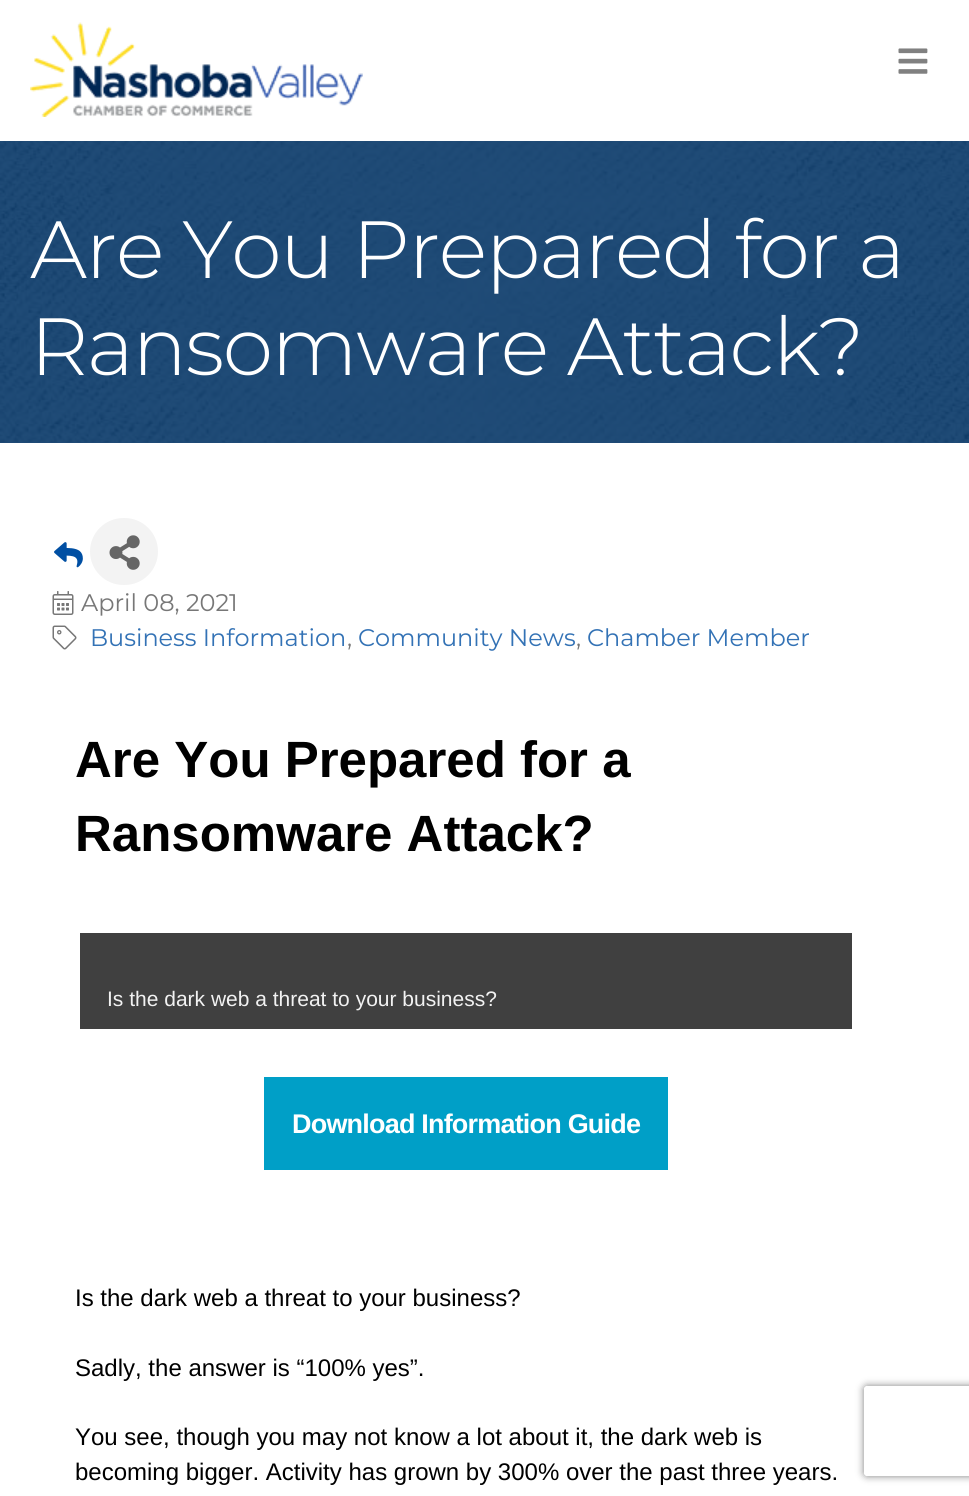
import math
import cairo


def use_color(cr, r, g, b):
  cr.set_source_rgb(r / 255, g / 255, b / 255)

def text(cr, x, y, s, family, size, color, bold=False, italic=False):
  cr.select_font_face(family, cairo.FONT_SLANT_ITALIC if italic else cairo.FONT_SLANT_NORMAL, cairo.FONT_WEIGHT_BOLD if bold else cairo.FONT_WEIGHT_NORMAL)
  cr.set_font_size(size)
  use_color(cr, *color)
  cr.move_to(x, y)
  cr.show_text(s)

def spaced_text(cr, x, y, s, letter, word):
  cr.move_to(x, y)
  for ch in s:
    cr.show_text(ch)
    cr.rel_move_to(letter + word * (ch == ' '), 0)

def box(cr, x, y, w, h, *color):
  use_color(cr, *color)
  cr.rectangle(x, y, w, h)
  cr.fill()

def round_rect(cr, x, y, w, h, r):
  cr.new_sub_path()
  for i, (u, v) in enumerate([(x + w - r, y + h - r), (x + r, y + h - r), (x + r, y + r), (x + w - r, y + r)]):
    cr.arc(u, v, r, i * math.pi / 2, (i + 1) * math.pi / 2)
  cr.close_path()

def shadow(cr, x, y, w, h, r, blur, alpha):
  cr.push_group_with_content(cairo.CONTENT_ALPHA)
  cr.set_operator(cairo.OPERATOR_SOURCE)
  for i in range(15, -16, -2):
    e = blur * i / 6
    if min(w, h) + 2 * e > 0:
      cr.set_source_rgba(0, 0, 0, alpha * math.erfc((i - 1) / 8.5) / 2)
      round_rect(cr, x - e, y - e, w + 2 * e, h + 2 * e, max(0, min(r + e + blur * .6, min(w, h) / 2 + e)))
      cr.fill()
  cr.mask(cr.pop_group())

def picture(cr, path, x, y, w, h):
  cr.save()
  cr.set_source_surface(cairo.ImageSurface.create_from_png(path), x, y)
  cr.rectangle(x, y, w, h)
  cr.fill()
  cr.restore()

def draw(cr):
  use_color(cr, 255, 255, 255)
  cr.paint()
  box(cr, 0, 442, 969, 1, 32, 75, 119)
  picture(cr, "img_01.png", 30, 22, 333, 95)
  picture(cr, "img_02.png", 898, 48, 30, 26)
  picture(cr, "img_03.png", 0, 141, 969, 302)
  picture(cr, "img_04.png", 54, 542, 29, 26)
  use_color(cr, 243, 243, 243)
  round_rect(cr, 90, 518, 68, 67, 33.5)
  cr.fill()
  picture(cr, "img_05.png", 109, 535, 31, 35)
  picture(cr, "img_06.png", 52, 591, 22, 24)
  picture(cr, "img_07.png", 52, 625, 25, 25)
  box(cr, 80, 933, 772, 96, 64, 64, 64)
  box(cr, 264, 1077, 404, 93, 0, 159, 199)
  cr.save()
  cr.set_fill_rule(cairo.FILL_RULE_EVEN_ODD)
  cr.new_path()
  cr.move_to(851, 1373)
  cr.line_to(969, 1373)
  cr.line_to(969, 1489)
  cr.line_to(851, 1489)
  cr.close_path()
  cr.move_to(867, 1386)
  cr.line_to(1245, 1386)
  cr.curve_to(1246.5, 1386, 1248, 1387.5, 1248, 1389)
  cr.line_to(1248, 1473)
  cr.curve_to(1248, 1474.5, 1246.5, 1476, 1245, 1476)
  cr.line_to(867, 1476)
  cr.curve_to(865.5, 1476, 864, 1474.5, 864, 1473)
  cr.line_to(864, 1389)
  cr.curve_to(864, 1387.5, 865.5, 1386, 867, 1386)
  cr.close_path()
  cr.clip()
  use_color(cr, 128, 128, 128)
  shadow(cr, 864, 1386, 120, 90, 3, 4, 1)
  cr.restore()
  cr.select_font_face("Montserrat Light")
  cr.set_font_size(81)
  use_color(cr, 255, 255, 255)
  spaced_text(cr, 30, 278, "Are You Prepared for a", -1.5, 0)
  spaced_text(cr, 30, 375, "Ransomware Attack?", -1.5, 0)
  text(cr, 81, 611, "April 08, 2021", "Montserrat", 24, (119, 119, 119))
  text(cr, 90, 646, "Business Information", "Montserrat", 24, (51, 114, 181))
  text(cr, 347, 646, ",", "Montserrat", 24, (119, 119, 119))
  text(cr, 358, 646, "Community News", "Montserrat", 24, (51, 114, 181))
  text(cr, 576, 646, ",", "Montserrat", 24, (119, 119, 119))
  text(cr, 587, 646, "Chamber Member", "Montserrat", 24, (51, 114, 181))
  text(cr, 75, 777, "Are You Prepared for a", "Liberation Sans", 51, (0, 0, 0), bold=True)
  text(cr, 75, 851, "Ransomware Attack?", "Liberation Sans", 51, (0, 0, 0), bold=True)
  text(cr, 107, 1006, "Is the dark web a threat to your business?", "Liberation Sans", 21, (242, 242, 242))
  cr.select_font_face("Liberation Sans", cairo.FONT_SLANT_NORMAL, cairo.FONT_WEIGHT_BOLD)
  cr.set_font_size(27)
  use_color(cr, 255, 255, 255)
  spaced_text(cr, 292, 1133, "Download Information Guide", -0.8, 0)
  text(cr, 75, 1306, "Is the dark web a threat to your business?", "Liberation Sans", 24, (0, 0, 0))
  text(cr, 75, 1376, "Sadly, the answer is “100% yes”.", "Liberation Sans", 24, (0, 0, 0))
  text(cr, 75, 1445, "You see, though you may not know a lot about it, the dark web is", "Liberation Sans", 24, (0, 0, 0))
  text(cr, 75, 1480, "becoming bigger. Activity has grown by 300% over the past three years.", "Liberation Sans", 24, (0, 0, 0))


surface = cairo.ImageSurface(cairo.FORMAT_RGB24, 969, 1496)
cr = cairo.Context(surface)
options = cairo.FontOptions()
options.set_hint_metrics(cairo.HINT_METRICS_OFF)
options.set_hint_style(cairo.HINT_STYLE_NONE)
cr.set_font_options(options)
cr.set_miter_limit(4)
draw(cr)
surface.write_to_png("out.png")
